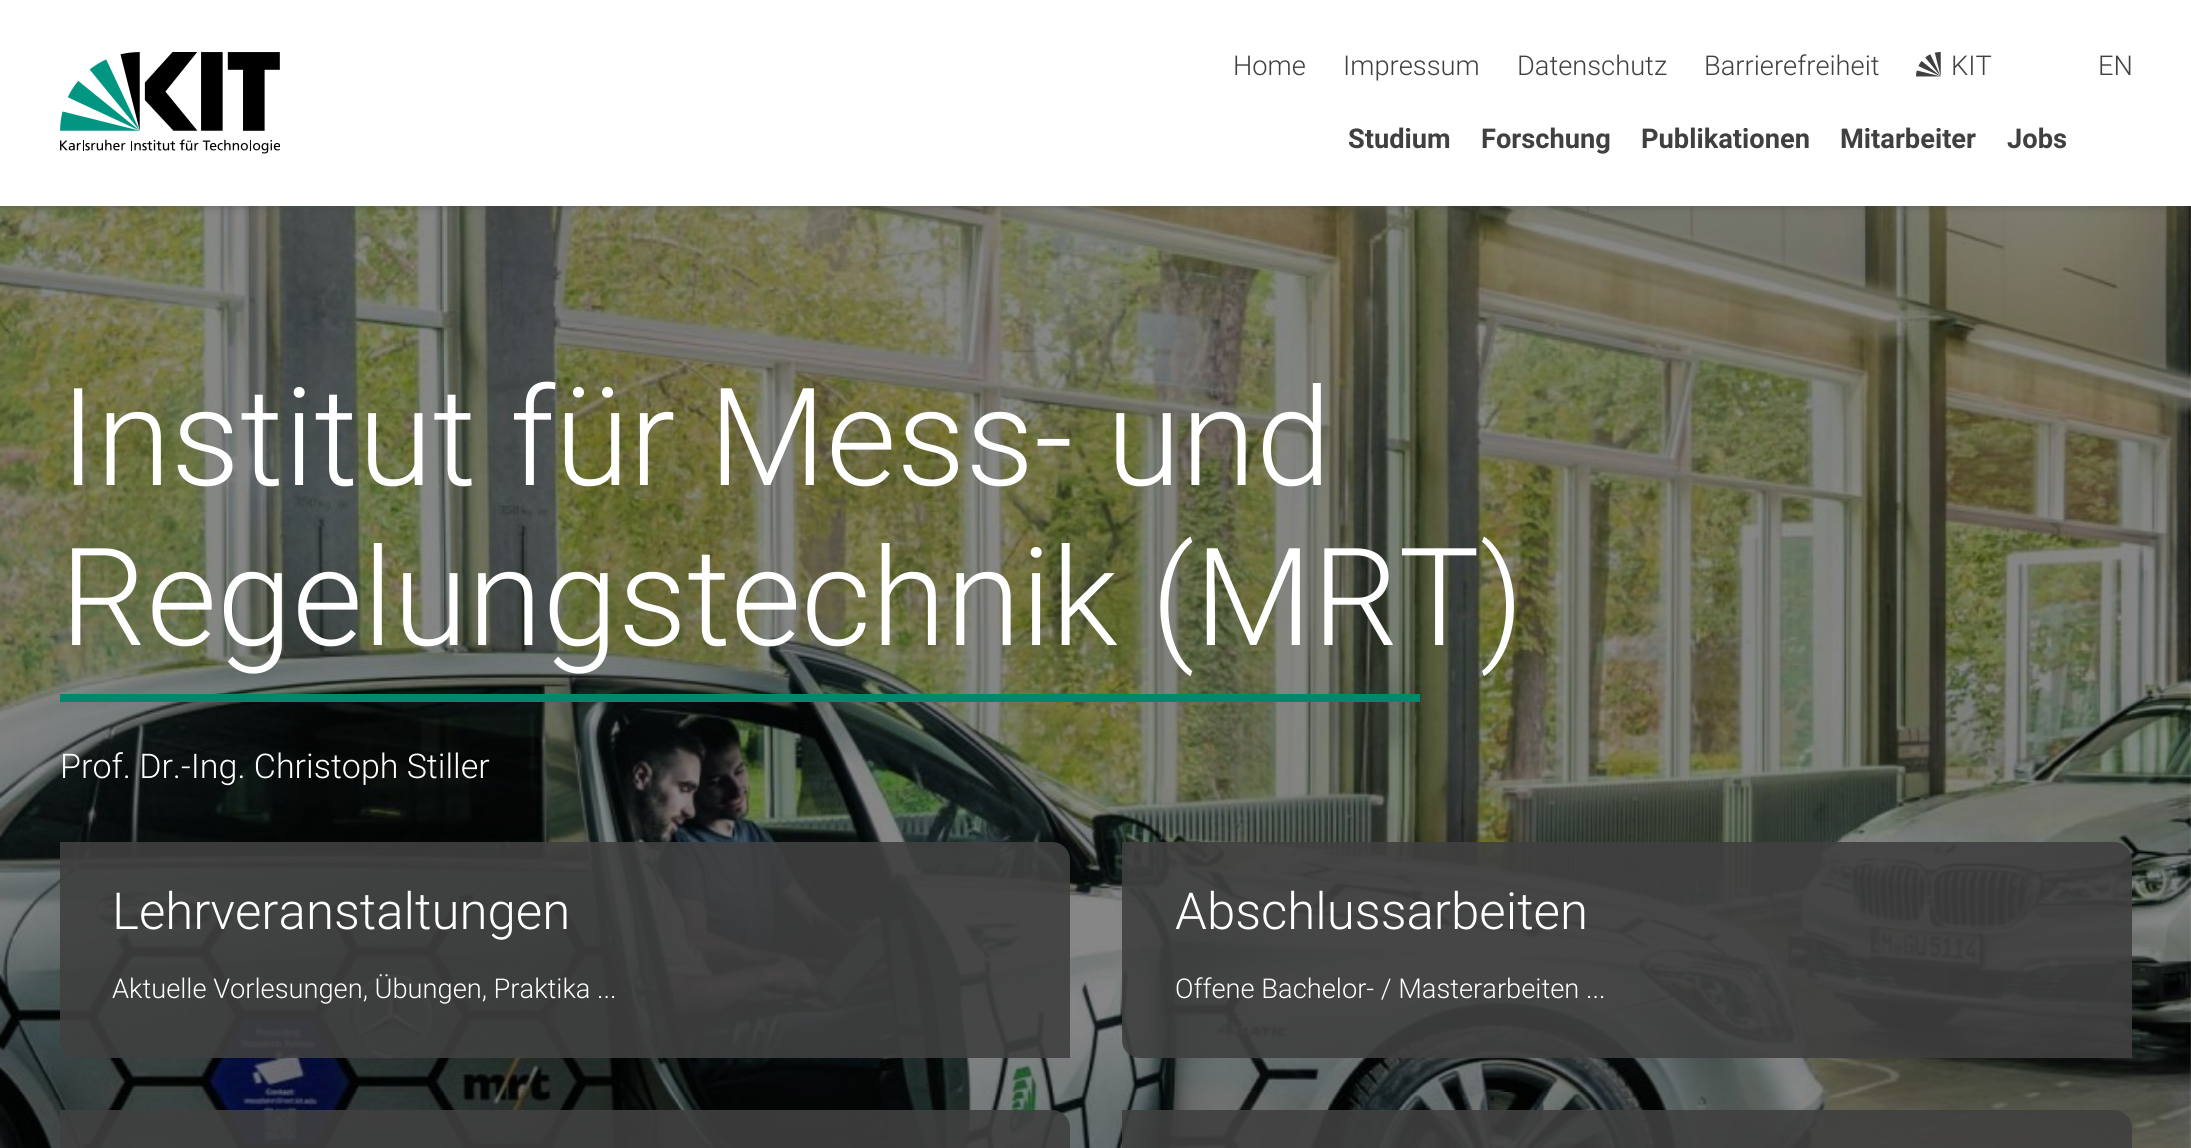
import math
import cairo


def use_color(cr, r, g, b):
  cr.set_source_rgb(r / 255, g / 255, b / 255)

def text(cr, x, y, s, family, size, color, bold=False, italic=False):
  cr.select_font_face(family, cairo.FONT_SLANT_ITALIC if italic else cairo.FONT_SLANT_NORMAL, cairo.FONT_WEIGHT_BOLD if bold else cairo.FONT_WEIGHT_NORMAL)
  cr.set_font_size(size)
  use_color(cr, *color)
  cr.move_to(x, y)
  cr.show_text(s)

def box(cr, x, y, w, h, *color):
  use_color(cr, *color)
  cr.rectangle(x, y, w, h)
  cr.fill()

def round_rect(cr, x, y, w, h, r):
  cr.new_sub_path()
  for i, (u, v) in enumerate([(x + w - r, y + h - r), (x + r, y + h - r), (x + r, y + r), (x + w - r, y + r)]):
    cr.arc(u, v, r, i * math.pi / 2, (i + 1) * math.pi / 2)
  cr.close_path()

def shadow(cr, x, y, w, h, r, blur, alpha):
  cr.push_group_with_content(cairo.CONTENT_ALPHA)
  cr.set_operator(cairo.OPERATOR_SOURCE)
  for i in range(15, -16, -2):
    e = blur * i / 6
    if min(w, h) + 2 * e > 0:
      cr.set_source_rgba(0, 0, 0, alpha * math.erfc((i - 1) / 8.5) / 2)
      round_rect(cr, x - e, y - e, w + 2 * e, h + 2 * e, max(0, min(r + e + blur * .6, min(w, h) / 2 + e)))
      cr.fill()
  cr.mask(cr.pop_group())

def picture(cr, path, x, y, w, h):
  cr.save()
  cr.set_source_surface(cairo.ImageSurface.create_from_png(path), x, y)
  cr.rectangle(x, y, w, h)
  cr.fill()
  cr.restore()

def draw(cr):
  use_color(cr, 255, 255, 255)
  cr.paint()
  picture(cr, "img_03.png", 0, 206, 2191, 942)
  cr.save()
  cr.rectangle(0, 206, 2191, 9)
  cr.clip()
  use_color(cr, 64, 64, 64)
  shadow(cr, 0, 0, 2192, 206, 0, 5, 0.5)
  cr.restore()
  picture(cr, "img_01.png", 60, 52, 220, 102)
  picture(cr, "img_02.png", 1916, 52, 25, 25)
  box(cr, 60, 694, 1360, 8, 0, 135, 108)
  cr.set_source_rgba(0.251, 0.251, 0.251, 0.9)
  cr.new_path()
  cr.move_to(60, 842)
  cr.line_to(1052, 842)
  cr.curve_to(1062, 842, 1070, 850, 1070, 860)
  cr.line_to(1070, 1058)
  cr.line_to(78, 1058)
  cr.curve_to(68, 1058, 60, 1050, 60, 1040)
  cr.close_path()
  cr.fill()
  cr.new_path()
  cr.move_to(1122, 842)
  cr.line_to(2114, 842)
  cr.curve_to(2124, 842, 2132, 850, 2132, 860)
  cr.line_to(2132, 1058)
  cr.line_to(1140, 1058)
  cr.curve_to(1130, 1058, 1122, 1050, 1122, 1040)
  cr.close_path()
  cr.fill()
  cr.new_path()
  cr.move_to(60, 1110)
  cr.line_to(1052, 1110)
  cr.curve_to(1062, 1110, 1070, 1118, 1070, 1128)
  cr.line_to(1070, 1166)
  cr.line_to(78, 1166)
  cr.curve_to(68, 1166, 60, 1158, 60, 1148)
  cr.close_path()
  cr.fill()
  cr.new_path()
  cr.move_to(1122, 1110)
  cr.line_to(2114, 1110)
  cr.curve_to(2124, 1110, 2132, 1118, 2132, 1128)
  cr.line_to(2132, 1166)
  cr.line_to(1140, 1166)
  cr.curve_to(1130, 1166, 1122, 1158, 1122, 1148)
  cr.close_path()
  cr.fill()
  text(cr, 1233, 75, "Home", "Roboto Light", 27.25, (64, 64, 64))
  text(cr, 1343, 75, "Impressum", "Roboto Light", 27.25, (64, 64, 64))
  text(cr, 1517, 75, "Datenschutz", "Roboto Light", 27.25, (64, 64, 64))
  text(cr, 1704, 75, "Barrierefreiheit", "Roboto Light", 27.25, (64, 64, 64))
  text(cr, 1951, 75, "KIT", "Roboto Light", 27.25, (64, 64, 64))
  text(cr, 2098, 75, "EN", "Roboto Light", 27.25, (64, 64, 64))
  text(cr, 1348, 148, "Studium", "Roboto", 27.25, (64, 64, 64), bold=True)
  text(cr, 1481, 148, "Forschung", "Roboto", 27.25, (64, 64, 64), bold=True)
  text(cr, 1641, 148, "Publikationen", "Roboto", 27.25, (64, 64, 64), bold=True)
  text(cr, 1840, 148, "Mitarbeiter", "Roboto", 27.25, (64, 64, 64), bold=True)
  text(cr, 2007, 148, "Jobs", "Roboto", 27.25, (64, 64, 64), bold=True)
  text(cr, 60, 485, "Institut für Mess- und", "Roboto Light", 136, (255, 255, 255))
  text(cr, 60, 645, "Regelungstechnik (MRT)", "Roboto Light", 136, (255, 255, 255))
  text(cr, 60, 778, "Prof. Dr.-Ing. Christoph Stiller", "Roboto Light", 34, (255, 255, 255))
  text(cr, 112, 929, "Lehrveranstaltungen", "Roboto Light", 51, (255, 255, 255))
  text(cr, 112, 998, "Aktuelle Vorlesungen, Übungen, Praktika ...", "Roboto Light", 27.25, (255, 255, 255))
  text(cr, 1175, 929, "Abschlussarbeiten", "Roboto Light", 51, (255, 255, 255))
  text(cr, 1175, 998, "Offene Bachelor- / Masterarbeiten ...", "Roboto Light", 27.25, (255, 255, 255))


surface = cairo.ImageSurface(cairo.FORMAT_RGB24, 2191, 1148)
cr = cairo.Context(surface)
options = cairo.FontOptions()
options.set_hint_metrics(cairo.HINT_METRICS_OFF)
options.set_hint_style(cairo.HINT_STYLE_NONE)
cr.set_font_options(options)
cr.set_miter_limit(4)
draw(cr)
surface.write_to_png("out.png")
